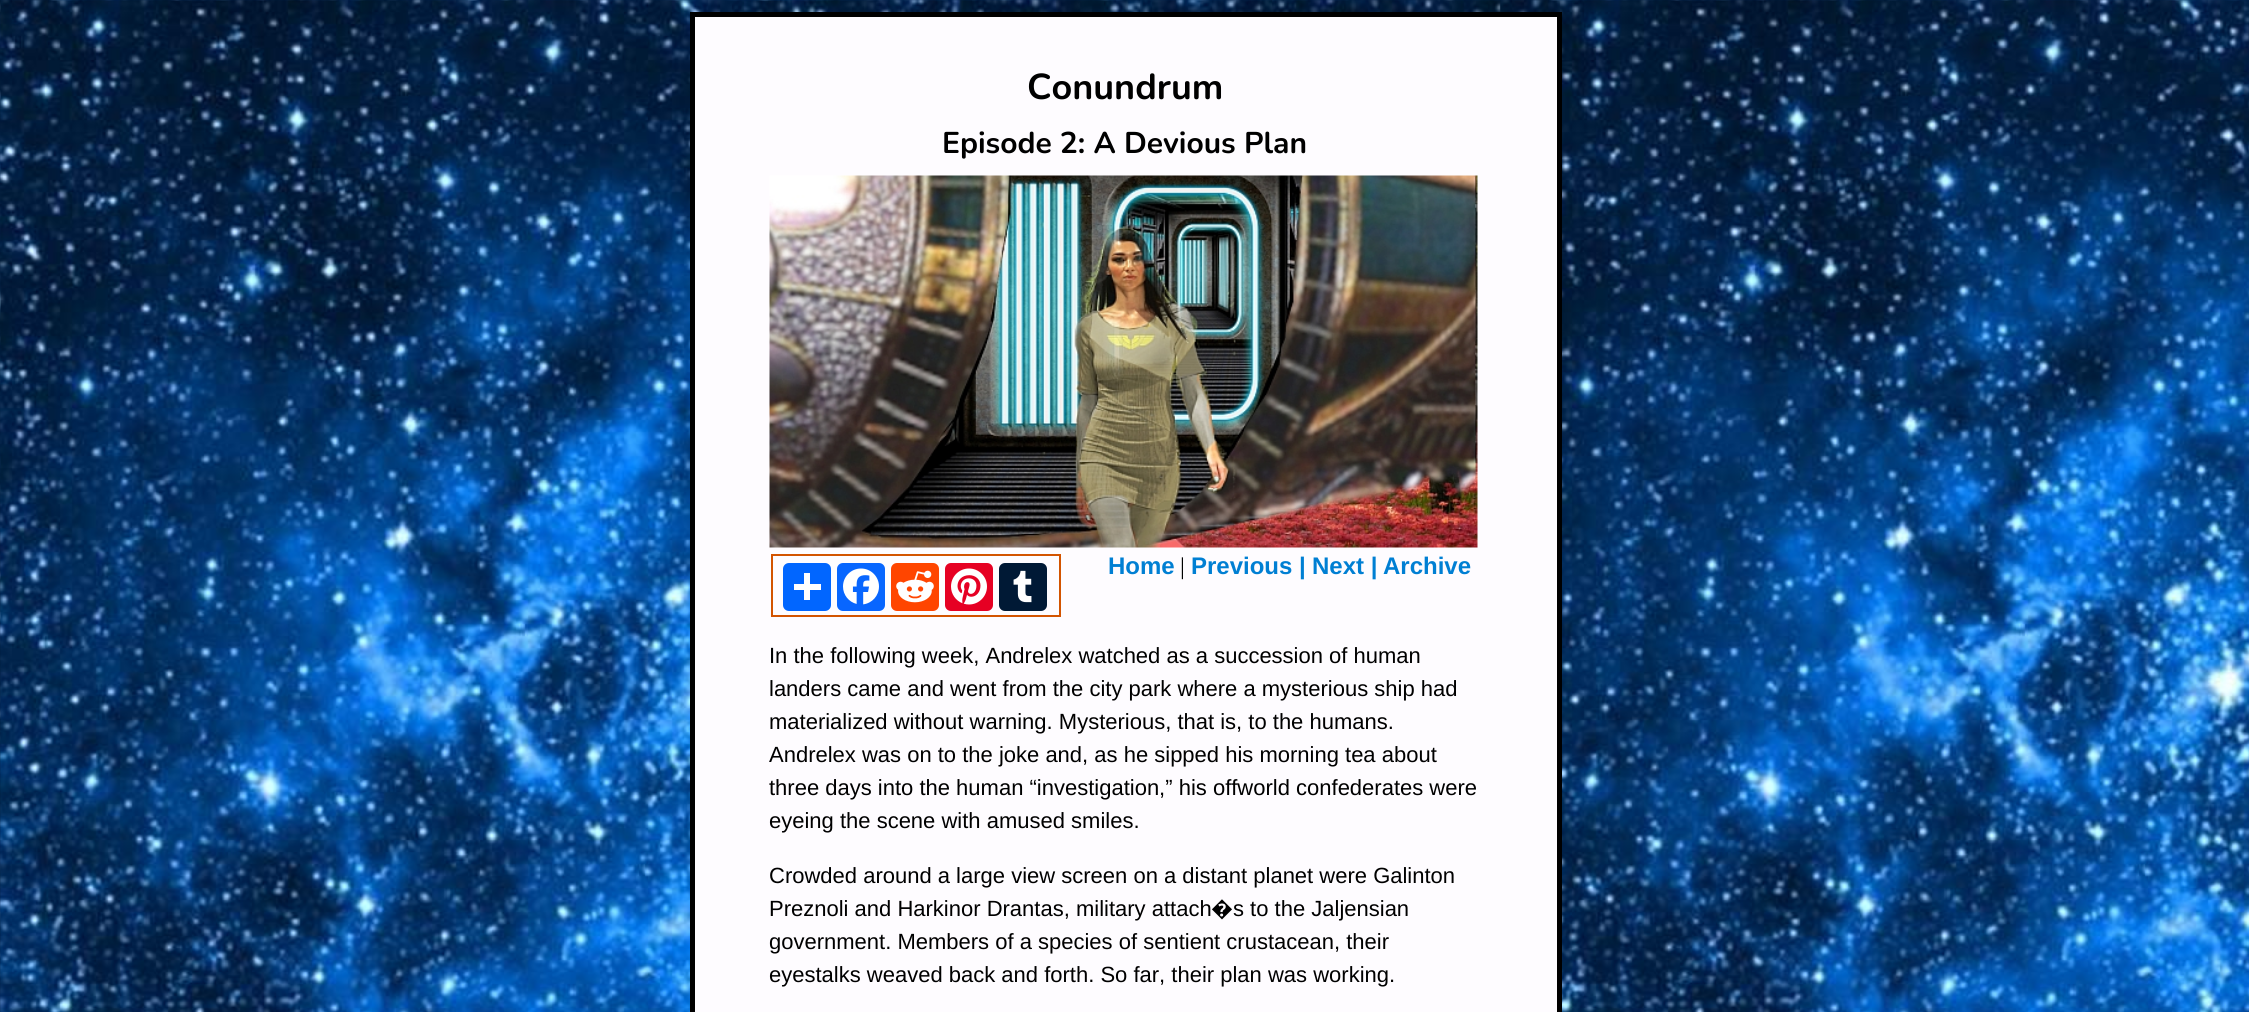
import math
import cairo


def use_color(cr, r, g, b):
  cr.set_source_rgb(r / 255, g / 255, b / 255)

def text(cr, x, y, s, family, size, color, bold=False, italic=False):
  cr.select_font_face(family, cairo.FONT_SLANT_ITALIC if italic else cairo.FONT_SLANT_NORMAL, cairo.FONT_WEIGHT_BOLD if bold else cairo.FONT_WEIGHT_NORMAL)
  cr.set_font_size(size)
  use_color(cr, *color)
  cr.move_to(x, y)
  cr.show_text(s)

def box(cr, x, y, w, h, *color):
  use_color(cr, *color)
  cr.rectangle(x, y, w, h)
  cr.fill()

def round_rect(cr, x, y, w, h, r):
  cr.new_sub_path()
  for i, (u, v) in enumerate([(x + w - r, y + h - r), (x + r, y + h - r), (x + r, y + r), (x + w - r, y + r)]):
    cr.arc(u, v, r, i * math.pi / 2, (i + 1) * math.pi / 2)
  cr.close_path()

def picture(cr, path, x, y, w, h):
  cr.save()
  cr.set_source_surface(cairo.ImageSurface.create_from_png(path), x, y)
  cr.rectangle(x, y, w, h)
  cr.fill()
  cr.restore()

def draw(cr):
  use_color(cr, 255, 255, 255)
  cr.paint()
  picture(cr, "img_01.png", 0, 0, 2249, 1012)
  use_color(cr, 254, 252, 255)
  cr.rectangle(692.5, 14.5, 867, 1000)
  cr.fill_preserve()
  use_color(cr, 0, 0, 0)
  cr.set_line_width(5)
  cr.stroke()
  picture(cr, "img_02.png", 769, 175, 709, 373)
  cr.rectangle(772, 555, 288, 61)
  use_color(cr, 211, 84, 0)
  cr.set_line_width(2)
  cr.stroke()
  use_color(cr, 1, 102, 255)
  round_rect(cr, 783, 563, 48, 48, 6)
  cr.fill()
  box(cr, 804, 573, 6, 27, 255, 255, 255)
  box(cr, 794, 584, 27, 6, 255, 255, 255)
  use_color(cr, 8, 102, 255)
  round_rect(cr, 837, 563, 48, 48, 6)
  cr.fill()
  picture(cr, "img_03.png", 843, 568, 36, 37)
  use_color(cr, 255, 69, 0)
  round_rect(cr, 891, 563, 48, 48, 6)
  cr.fill()
  picture(cr, "img_04.png", 896, 570, 38, 33)
  use_color(cr, 230, 0, 35)
  round_rect(cr, 945, 563, 48, 48, 6)
  cr.fill()
  picture(cr, "img_05.png", 951, 568, 36, 37)
  use_color(cr, 0, 25, 53)
  round_rect(cr, 999, 563, 48, 48, 6)
  cr.fill()
  picture(cr, "img_06.png", 1013, 570, 19, 33)
  text(cr, 1027, 99, "Conundrum", "Nunito", 36, (0, 0, 0), bold=True)
  text(cr, 942, 153, "Episode 2: A Devious Plan", "Nunito", 30, (0, 0, 0), bold=True)
  text(cr, 1108, 574, "Home", "Liberation Sans", 24, (0, 127, 211), bold=True)
  text(cr, 1180, 574, "|", "Liberation Serif", 24, (0, 0, 0))
  text(cr, 1191, 574, "Previous |", "Liberation Sans", 24, (0, 127, 211), bold=True)
  text(cr, 1312, 574, "Next |", "Liberation Sans", 24, (0, 127, 211), bold=True)
  text(cr, 1383, 574, "Archive", "Liberation Sans", 24, (0, 127, 211), bold=True)
  text(cr, 769, 663, "In the following week, Andrelex watched as a succession of human", "Liberation Sans", 22, (0, 0, 0))
  text(cr, 769, 696, "landers came and went from the city park where a mysterious ship had", "Liberation Sans", 22, (0, 0, 0))
  text(cr, 769, 729, "materialized without warning. Mysterious, that is, to the humans.", "Liberation Sans", 22, (0, 0, 0))
  text(cr, 769, 762, "Andrelex was on to the joke and, as he sipped his morning tea about", "Liberation Sans", 22, (0, 0, 0))
  text(cr, 769, 795, "three days into the human “investigation,” his offworld confederates were", "Liberation Sans", 22, (0, 0, 0))
  text(cr, 769, 828, "eyeing the scene with amused smiles.", "Liberation Sans", 22, (0, 0, 0))
  text(cr, 769, 883, "Crowded around a large view screen on a distant planet were Galinton", "Liberation Sans", 22, (0, 0, 0))
  text(cr, 769, 916, "Preznoli and Harkinor Drantas, military attach", "Liberation Sans", 22, (0, 0, 0))
  text(cr, 1211, 916, "�", "Noto Sans", 22, (0, 0, 0))
  text(cr, 1233, 916, "s to the Jaljensian", "Liberation Sans", 22, (0, 0, 0))
  text(cr, 769, 949, "government. Members of a species of sentient crustacean, their", "Liberation Sans", 22, (0, 0, 0))
  text(cr, 769, 982, "eyestalks weaved back and forth. So far, their plan was working.", "Liberation Sans", 22, (0, 0, 0))


surface = cairo.ImageSurface(cairo.FORMAT_RGB24, 2249, 1012)
cr = cairo.Context(surface)
options = cairo.FontOptions()
options.set_hint_metrics(cairo.HINT_METRICS_OFF)
options.set_hint_style(cairo.HINT_STYLE_NONE)
cr.set_font_options(options)
cr.set_miter_limit(4)
draw(cr)
surface.write_to_png("out.png")
